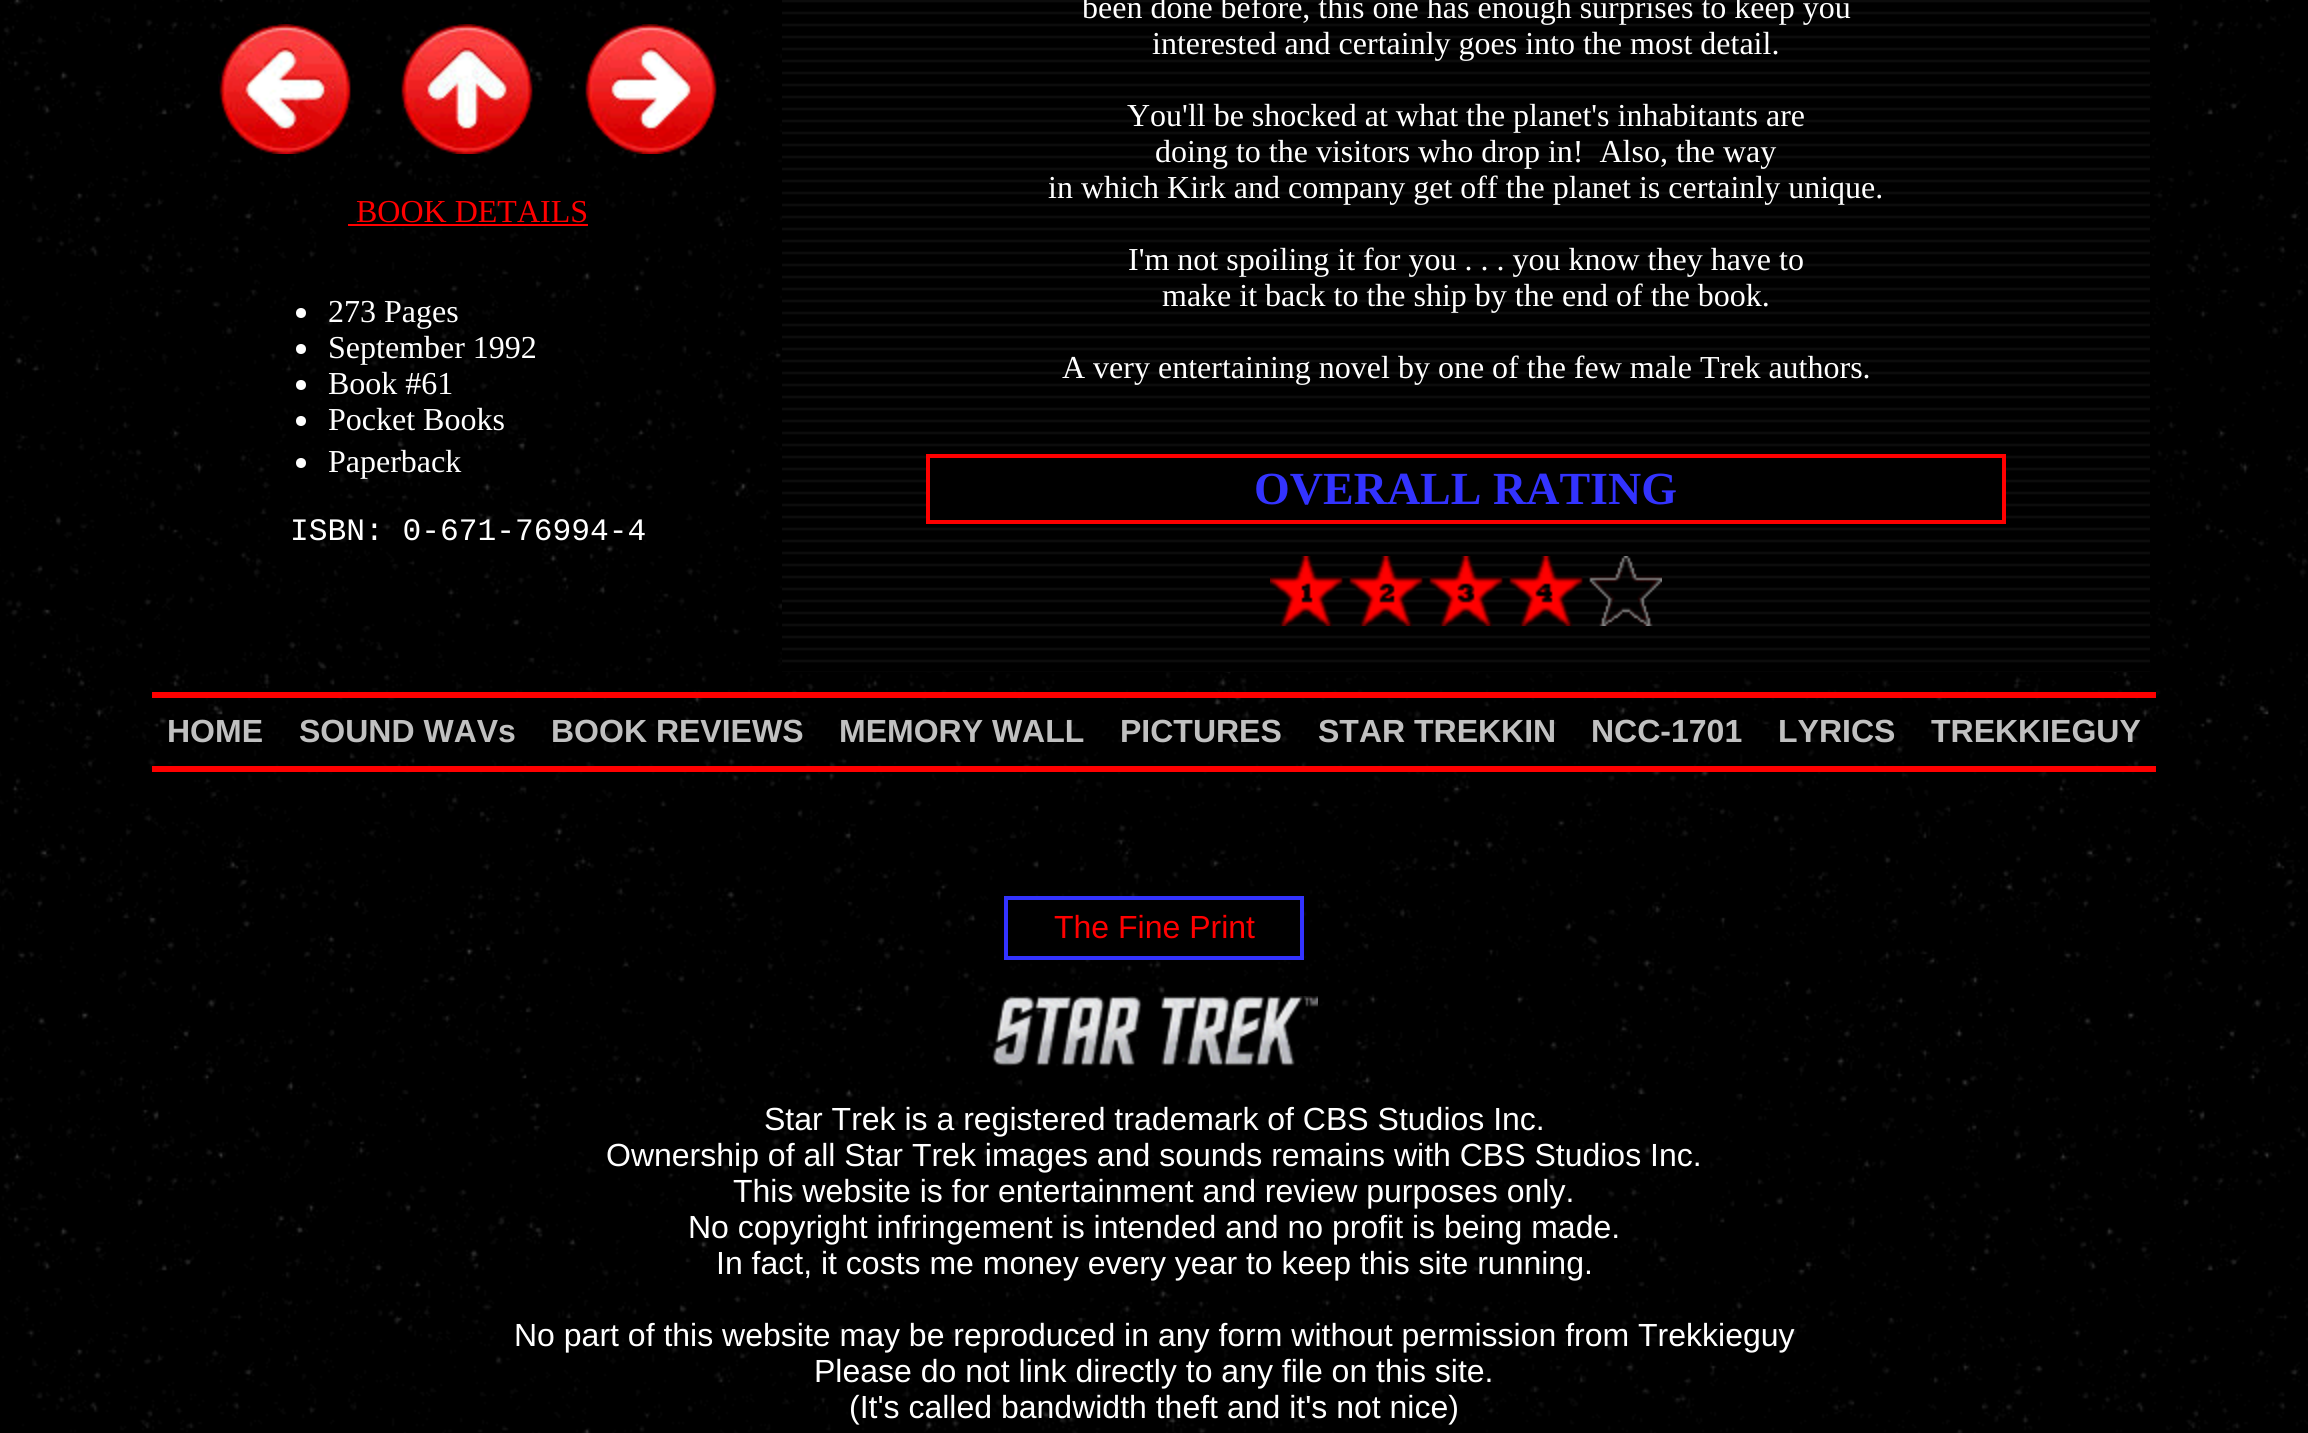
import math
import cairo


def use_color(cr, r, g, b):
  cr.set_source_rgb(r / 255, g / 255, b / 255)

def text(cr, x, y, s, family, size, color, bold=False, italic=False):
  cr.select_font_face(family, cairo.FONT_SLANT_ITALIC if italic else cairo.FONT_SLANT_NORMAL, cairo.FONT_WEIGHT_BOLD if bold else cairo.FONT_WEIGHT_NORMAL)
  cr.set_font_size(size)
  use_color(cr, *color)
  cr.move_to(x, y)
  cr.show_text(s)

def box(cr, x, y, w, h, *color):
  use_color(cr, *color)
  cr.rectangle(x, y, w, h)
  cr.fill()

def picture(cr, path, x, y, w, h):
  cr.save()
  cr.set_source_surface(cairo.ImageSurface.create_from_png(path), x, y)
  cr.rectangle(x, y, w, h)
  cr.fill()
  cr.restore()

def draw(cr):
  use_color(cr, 255, 255, 255)
  cr.paint()
  picture(cr, "img_01.png", 0, 0, 2308, 1433)
  picture(cr, "img_02.png", 218, 24, 133, 130)
  picture(cr, "img_03.png", 401, 24, 132, 130)
  picture(cr, "img_04.png", 585, 24, 132, 130)
  box(cr, 348, 224, 240, 2, 255, 0, 0)
  use_color(cr, 255, 255, 255)
  cr.arc(301, 313, 5, 0, 2 * math.pi)
  cr.fill()
  cr.arc(301, 349, 5, 0, 2 * math.pi)
  cr.fill()
  cr.arc(301, 385, 5, 0, 2 * math.pi)
  cr.fill()
  cr.arc(301, 421, 5, 0, 2 * math.pi)
  cr.fill()
  cr.arc(301, 463, 5, 0, 2 * math.pi)
  cr.fill()
  picture(cr, "img_05.png", 782, 0, 1368, 672)
  box(cr, 926, 454, 1080, 70, 255, 0, 0)
  box(cr, 930, 458, 1072, 62, 0, 0, 0)
  picture(cr, "img_06.png", 1270, 556, 392, 70)
  box(cr, 152, 692, 2004, 6, 255, 0, 0)
  box(cr, 152, 766, 2004, 6, 255, 0, 0)
  box(cr, 1004, 896, 300, 64, 51, 51, 255)
  box(cr, 1008, 900, 292, 56, 0, 0, 0)
  picture(cr, "img_07.png", 992, 996, 326, 70)
  text(cr, 356, 222, "BOOK DETAILS", "Liberation Serif", 32, (255, 0, 0))
  text(cr, 328, 322, "273 Pages", "Liberation Serif", 32, (255, 255, 255))
  text(cr, 328, 358, "September 1992", "Liberation Serif", 32, (255, 255, 255))
  text(cr, 328, 394, "Book #61", "Liberation Serif", 32, (255, 255, 255))
  text(cr, 328, 430, "Pocket Books", "Liberation Serif", 32, (255, 255, 255))
  text(cr, 328, 472, "Paperback", "Liberation Serif", 32, (255, 255, 255))
  text(cr, 290, 540, "ISBN: 0-671-76994-4", "Liberation Mono", 31.25, (255, 255, 255))
  text(cr, 1082, 18, "been done before, this one has enough surprises to keep you", "Liberation Serif", 32, (255, 255, 255))
  text(cr, 1152, 54, "interested and certainly goes into the most detail.", "Liberation Serif", 32, (255, 255, 255))
  text(cr, 1127, 126, "You'll be shocked at what the planet's inhabitants are", "Liberation Serif", 32, (255, 255, 255))
  text(cr, 1155, 162, "doing to the visitors who drop in!  Also, the way", "Liberation Serif", 32, (255, 255, 255))
  text(cr, 1048, 198, "in which Kirk and company get off the planet is certainly unique.", "Liberation Serif", 32, (255, 255, 255))
  text(cr, 1128, 270, "I'm not spoiling it for you . . . you know they have to", "Liberation Serif", 32, (255, 255, 255))
  text(cr, 1162, 306, "make it back to the ship by the end of the book.", "Liberation Serif", 32, (255, 255, 255))
  text(cr, 1062, 378, "A very entertaining novel by one of the few male Trek authors.", "Liberation Serif", 32, (255, 255, 255))
  text(cr, 1254, 504, "OVERALL RATING", "Liberation Serif", 46, (51, 51, 255), bold=True)
  text(cr, 167, 742, "HOME", "Liberation Sans", 32, (192, 192, 192), bold=True)
  text(cr, 299, 742, "SOUND WAVs", "Liberation Sans", 32, (192, 192, 192), bold=True)
  text(cr, 551, 742, "BOOK REVIEWS", "Liberation Sans", 32, (192, 192, 192), bold=True)
  text(cr, 839, 742, "MEMORY WALL", "Liberation Sans", 32, (192, 192, 192), bold=True)
  text(cr, 1120, 742, "PICTURES", "Liberation Sans", 32, (192, 192, 192), bold=True)
  text(cr, 1318, 742, "STAR TREKKIN", "Liberation Sans", 32, (192, 192, 192), bold=True)
  text(cr, 1591, 742, "NCC-1701", "Liberation Sans", 32, (192, 192, 192), bold=True)
  text(cr, 1778, 742, "LYRICS", "Liberation Sans", 32, (192, 192, 192), bold=True)
  text(cr, 1931, 742, "TREKKIEGUY", "Liberation Sans", 32, (192, 192, 192), bold=True)
  text(cr, 1054, 938, "The Fine Print", "Liberation Sans", 32, (255, 0, 0))
  text(cr, 764, 1130, "Star Trek is a registered trademark of CBS Studios Inc.", "Liberation Sans", 32, (255, 255, 255))
  text(cr, 606, 1166, "Ownership of all Star Trek images and sounds remains with CBS Studios Inc.", "Liberation Sans", 32, (255, 255, 255))
  text(cr, 733, 1202, "This website is for entertainment and review purposes only.", "Liberation Sans", 32, (255, 255, 255))
  text(cr, 688, 1238, "No copyright infringement is intended and no profit is being made.", "Liberation Sans", 32, (255, 255, 255))
  text(cr, 716, 1274, "In fact, it costs me money every year to keep this site running.", "Liberation Sans", 32, (255, 255, 255))
  text(cr, 514, 1346, "No part of this website may be reproduced in any form without permission from Trekkieguy", "Liberation Sans", 32, (255, 255, 255))
  text(cr, 814, 1382, "Please do not link directly to any file on this site.", "Liberation Sans", 32, (255, 255, 255))
  text(cr, 849, 1418, "(It's called bandwidth theft and it's not nice)", "Liberation Sans", 32, (255, 255, 255))


surface = cairo.ImageSurface(cairo.FORMAT_RGB24, 2308, 1433)
cr = cairo.Context(surface)
options = cairo.FontOptions()
options.set_hint_metrics(cairo.HINT_METRICS_OFF)
options.set_hint_style(cairo.HINT_STYLE_NONE)
cr.set_font_options(options)
cr.set_miter_limit(4)
draw(cr)
surface.write_to_png("out.png")
